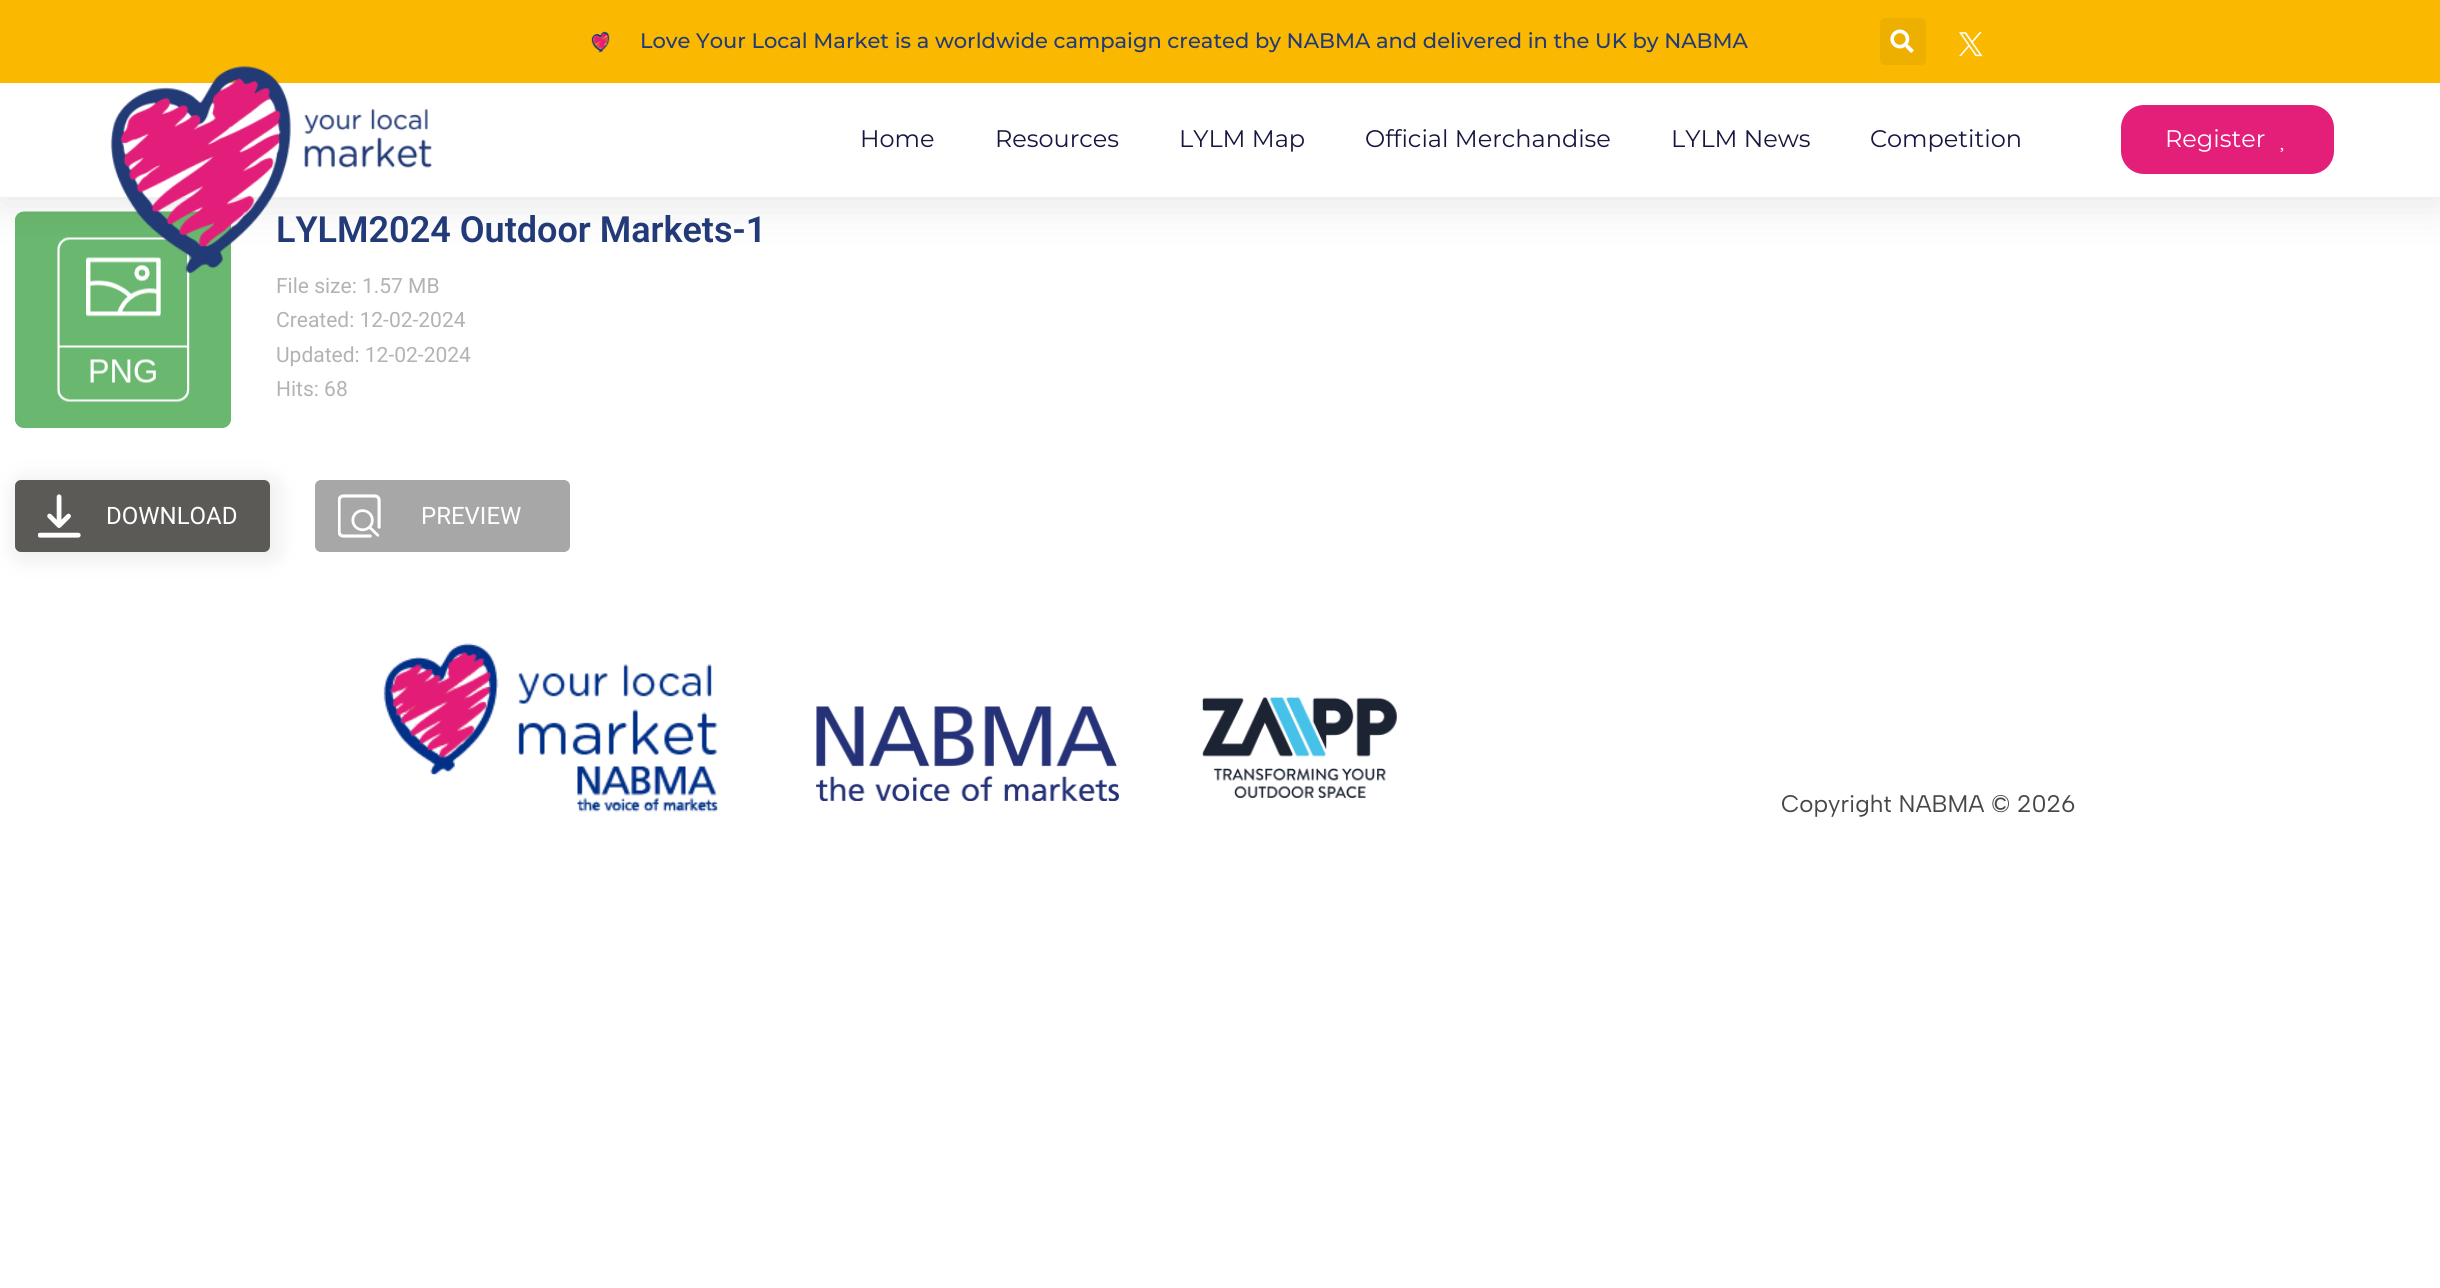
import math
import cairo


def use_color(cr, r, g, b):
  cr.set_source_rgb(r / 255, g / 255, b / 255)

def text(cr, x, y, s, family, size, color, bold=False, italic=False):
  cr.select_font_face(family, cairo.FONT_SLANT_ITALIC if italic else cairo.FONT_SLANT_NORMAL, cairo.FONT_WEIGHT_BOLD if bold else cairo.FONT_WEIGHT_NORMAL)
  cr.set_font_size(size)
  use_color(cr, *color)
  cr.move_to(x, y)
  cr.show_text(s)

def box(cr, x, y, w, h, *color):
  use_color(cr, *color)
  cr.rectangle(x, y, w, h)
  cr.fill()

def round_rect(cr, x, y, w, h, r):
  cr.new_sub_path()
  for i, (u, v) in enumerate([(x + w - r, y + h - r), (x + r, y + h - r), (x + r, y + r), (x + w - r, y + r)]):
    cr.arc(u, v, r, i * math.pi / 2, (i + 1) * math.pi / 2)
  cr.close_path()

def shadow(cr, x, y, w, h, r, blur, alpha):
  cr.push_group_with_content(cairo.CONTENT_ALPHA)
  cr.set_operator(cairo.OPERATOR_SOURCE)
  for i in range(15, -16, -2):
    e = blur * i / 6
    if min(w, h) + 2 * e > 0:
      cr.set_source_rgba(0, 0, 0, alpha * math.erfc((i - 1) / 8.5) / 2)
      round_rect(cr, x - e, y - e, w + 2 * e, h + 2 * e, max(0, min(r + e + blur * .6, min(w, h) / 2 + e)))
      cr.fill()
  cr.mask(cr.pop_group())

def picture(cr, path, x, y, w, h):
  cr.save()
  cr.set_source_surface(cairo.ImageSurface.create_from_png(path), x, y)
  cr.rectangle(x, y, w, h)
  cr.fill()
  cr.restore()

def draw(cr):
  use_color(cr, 255, 255, 255)
  cr.paint()
  use_color(cr, 106, 184, 111)
  round_rect(cr, 15, 212, 216, 216, 9)
  cr.fill()
  picture(cr, "img_06.png", 14, 211, 217, 217)
  use_color(cr, 0, 0, 0)
  shadow(cr, 0, 8, 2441, 196, 0, 22.5, 0.1)
  box(cr, 0, 0, 2440, 83, 250, 185, 0)
  picture(cr, "img_01.png", 591, 31, 19, 22)
  use_color(cr, 238, 176, 0)
  round_rect(cr, 1880, 18, 46, 47, 5)
  cr.fill()
  picture(cr, "img_02.png", 1890, 29, 24, 24)
  picture(cr, "img_03.png", 1959, 32, 24, 25)
  box(cr, 0, 83, 2440, 114, 255, 255, 255)
  use_color(cr, 227, 31, 122)
  round_rect(cr, 2121, 105, 213, 69, 23)
  cr.fill()
  picture(cr, "img_05.png", 2280, 147, 4, 5)
  use_color(cr, 240, 240, 240)
  shadow(cr, 11, 476, 270, 87, 14, 9, 1)
  use_color(cr, 92, 90, 87)
  round_rect(cr, 15, 480, 255, 72, 6)
  cr.fill()
  picture(cr, "img_07.png", 38, 494, 43, 44)
  use_color(cr, 167, 167, 167)
  round_rect(cr, 315, 480, 255, 72, 6)
  cr.fill()
  picture(cr, "img_08.png", 338, 494, 43, 44)
  picture(cr, "img_09.png", 383, 643, 335, 169)
  picture(cr, "img_10.png", 816, 706, 303, 95)
  picture(cr, "img_11.png", 1202, 697, 195, 101)
  text(cr, 640, 48, "Love Your Local Market is a worldwide campaign created by NABMA and delivered in the UK by NABMA", "Montserrat Medium", 21, (34, 58, 119))
  text(cr, 860, 147, "Home", "Montserrat", 24, (22, 22, 63))
  text(cr, 995, 147, "Resources", "Montserrat", 24, (22, 22, 63))
  text(cr, 1179, 147, "LYLM Map", "Montserrat", 24, (22, 22, 63))
  text(cr, 1365, 147, "Official Merchandise", "Montserrat", 24, (22, 22, 63))
  text(cr, 1671, 147, "LYLM News", "Montserrat", 24, (22, 22, 63))
  text(cr, 1870, 147, "Competition", "Montserrat", 24, (22, 22, 63))
  text(cr, 2165, 147, "Register", "Montserrat", 24, (255, 255, 255))
  text(cr, 276, 242, "LYLM2024 Outdoor Markets-1", "Roboto SemiBold", 36, (34, 58, 119))
  picture(cr, "img_04.png", 110, 66, 323, 208)
  text(cr, 276, 293, "File size: 1.57 MB", "Roboto", 21, (179, 179, 179))
  text(cr, 276, 327, "Created: 12-02-2024", "Roboto", 21, (179, 179, 179))
  text(cr, 276, 362, "Updated: 12-02-2024", "Roboto", 21, (179, 179, 179))
  text(cr, 276, 396, "Hits: 68", "Roboto", 21, (179, 179, 179))
  text(cr, 106, 524, "DOWNLOAD", "Roboto", 24, (255, 255, 255))
  text(cr, 421, 524, "PREVIEW", "Roboto", 24, (255, 255, 255))
  text(cr, 1781, 812, "Copyright NABMA © 2026", "Albert Sans", 24, (71, 71, 71))


surface = cairo.ImageSurface(cairo.FORMAT_RGB24, 2440, 1288)
cr = cairo.Context(surface)
options = cairo.FontOptions()
options.set_hint_metrics(cairo.HINT_METRICS_OFF)
options.set_hint_style(cairo.HINT_STYLE_NONE)
cr.set_font_options(options)
cr.set_miter_limit(4)
draw(cr)
surface.write_to_png("out.png")
